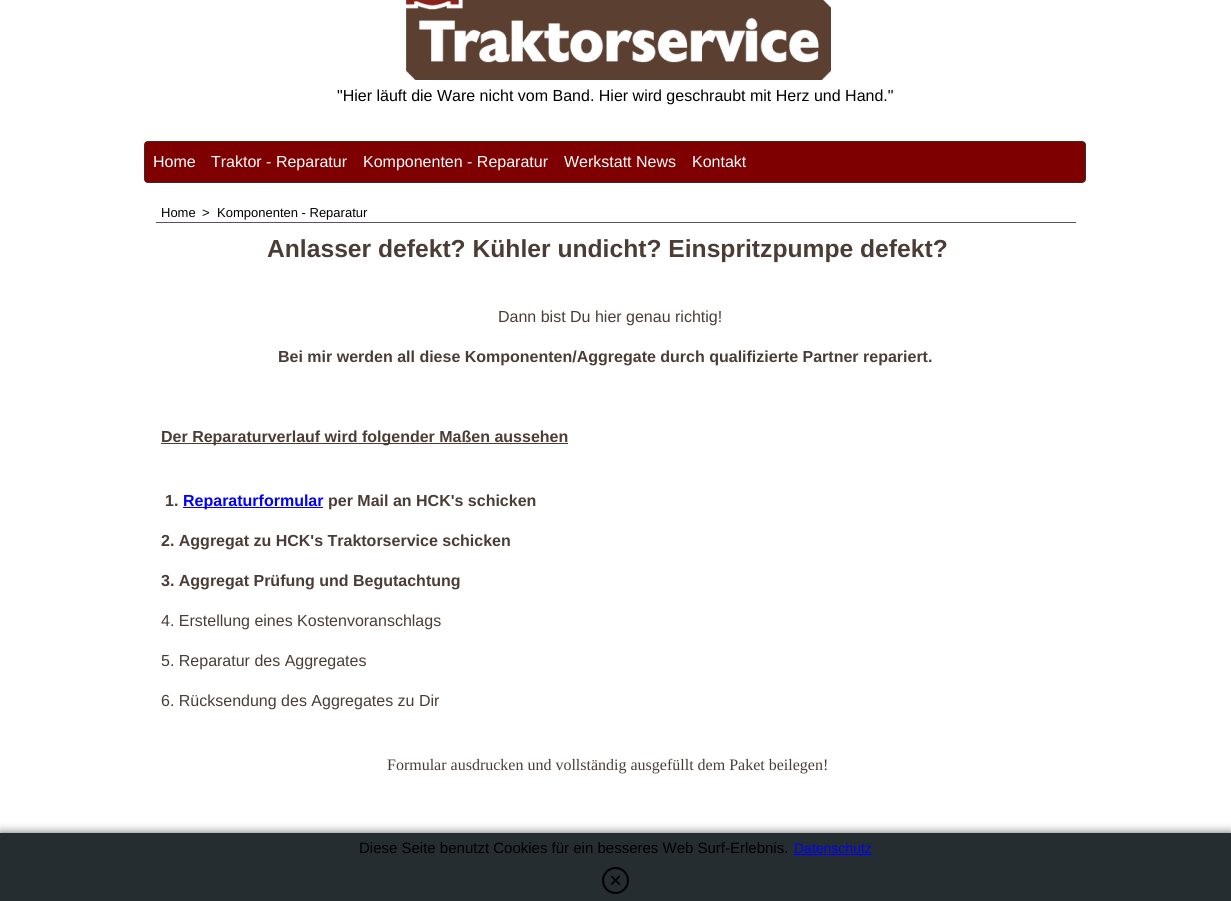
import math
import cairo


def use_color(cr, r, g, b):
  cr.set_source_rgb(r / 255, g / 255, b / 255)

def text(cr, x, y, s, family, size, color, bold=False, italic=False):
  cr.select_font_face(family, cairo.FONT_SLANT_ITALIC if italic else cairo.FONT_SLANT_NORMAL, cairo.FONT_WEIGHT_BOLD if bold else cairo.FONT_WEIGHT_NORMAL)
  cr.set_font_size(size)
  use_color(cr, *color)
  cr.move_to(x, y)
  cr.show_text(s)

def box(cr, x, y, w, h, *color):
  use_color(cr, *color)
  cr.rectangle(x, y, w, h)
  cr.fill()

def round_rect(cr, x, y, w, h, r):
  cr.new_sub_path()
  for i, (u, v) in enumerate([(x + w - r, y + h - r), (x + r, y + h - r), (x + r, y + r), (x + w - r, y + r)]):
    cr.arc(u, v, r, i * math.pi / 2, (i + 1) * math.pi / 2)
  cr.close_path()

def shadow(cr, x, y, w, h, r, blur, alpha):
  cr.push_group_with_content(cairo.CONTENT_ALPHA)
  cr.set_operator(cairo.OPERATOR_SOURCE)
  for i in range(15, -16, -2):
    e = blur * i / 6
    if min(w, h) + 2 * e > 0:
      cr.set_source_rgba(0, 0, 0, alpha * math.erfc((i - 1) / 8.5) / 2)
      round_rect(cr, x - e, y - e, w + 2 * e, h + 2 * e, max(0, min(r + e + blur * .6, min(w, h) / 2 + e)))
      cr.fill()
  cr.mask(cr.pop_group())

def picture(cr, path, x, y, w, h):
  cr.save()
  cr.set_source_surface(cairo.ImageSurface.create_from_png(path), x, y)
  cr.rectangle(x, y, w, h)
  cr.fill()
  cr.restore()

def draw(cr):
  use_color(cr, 255, 255, 255)
  cr.paint()
  picture(cr, "img_01.png", 406, 0, 425, 80)
  use_color(cr, 127, 0, 0)
  round_rect(cr, 144.5, 141.5, 941, 41, 3.5)
  cr.fill_preserve()
  use_color(cr, 63, 43, 33)
  cr.set_line_width(1)
  cr.stroke()
  box(cr, 145, 142, 3, 40, 127, 0, 0)
  box(cr, 156, 222, 920, 1, 96, 81, 98)
  box(cr, 161, 443, 407, 1, 75, 61, 53)
  box(cr, 183, 507, 140, 1, 0, 0, 255)
  use_color(cr, 102, 102, 102)
  shadow(cr, 0, 833, 1231, 68, 0, 5, 1)
  box(cr, 0, 833, 1231, 68, 37, 45, 48)
  box(cr, 794, 854, 78, 1, 0, 0, 255)
  cr.arc(615.5, 880.5, 12.5, 0, 2 * math.pi)
  use_color(cr, 0, 0, 0)
  cr.set_line_width(2)
  cr.stroke()
  picture(cr, "img_02.png", 610, 875, 11, 10)
  text(cr, 337, 101, "\"Hier läuft die Ware nicht vom Band. Hier wird geschraubt mit Herz und Hand.\"", "Liberation Sans", 16, (0, 0, 0))
  text(cr, 153, 167, "Home", "Liberation Sans", 16, (255, 255, 255))
  text(cr, 211, 167, "Traktor - Reparatur", "Liberation Sans", 16, (255, 255, 255))
  text(cr, 363, 167, "Komponenten - Reparatur", "Liberation Sans", 16, (255, 255, 255))
  text(cr, 564, 167, "Werkstatt News", "Liberation Sans", 16, (255, 255, 255))
  text(cr, 692, 167, "Kontakt", "Liberation Sans", 16, (255, 255, 255))
  text(cr, 161, 217, "Home", "Liberation Sans", 13, (0, 0, 0))
  text(cr, 202, 217, ">", "Liberation Sans", 13, (0, 0, 0))
  text(cr, 217, 217, "Komponenten - Reparatur", "Liberation Sans", 13, (0, 0, 0))
  text(cr, 267, 257, "Anlasser defekt? Kühler undicht? Einspritzpumpe defekt?", "Liberation Sans", 24.65, (75, 61, 53), bold=True)
  text(cr, 498, 322, "Dann bist Du hier genau richtig!", "Liberation Sans", 16, (75, 61, 53))
  text(cr, 278, 362, "Bei mir werden all diese Komponenten/Aggregate durch qualifizierte Partner repariert.", "Liberation Sans", 16, (75, 61, 53), bold=True)
  text(cr, 161, 442, "Der Reparaturverlauf wird folgender Maßen aussehen", "Liberation Sans", 16, (75, 61, 53), bold=True)
  text(cr, 165, 506, "1.", "Liberation Sans", 16, (75, 61, 53), bold=True)
  text(cr, 183, 506, "Reparaturformular", "Liberation Sans", 16, (0, 0, 255), bold=True)
  text(cr, 328, 506, "per Mail an HCK's schicken", "Liberation Sans", 16, (75, 61, 53), bold=True)
  text(cr, 161, 546, "2. Aggregat zu HCK's Traktorservice schicken", "Liberation Sans", 16, (75, 61, 53), bold=True)
  text(cr, 161, 586, "3. Aggregat Prüfung und Begutachtung", "Liberation Sans", 16, (75, 61, 53), bold=True)
  text(cr, 161, 626, "4. Erstellung eines Kostenvoranschlags", "Liberation Sans", 16, (75, 61, 53))
  text(cr, 161, 666, "5. Reparatur des Aggregates", "Liberation Sans", 16, (75, 61, 53))
  text(cr, 161, 706, "6. Rücksendung des Aggregates zu Dir", "Liberation Sans", 16, (75, 61, 53))
  text(cr, 387, 770, "Formular ausdrucken und vollständig ausgefüllt dem Paket beilegen!", "Liberation Serif", 16, (75, 61, 53))
  text(cr, 359, 853, "Diese Seite benutzt Cookies für ein besseres Web Surf-Erlebnis.", "Liberation Sans", 15, (0, 0, 0))
  text(cr, 794, 853, "Datenschutz", "Liberation Sans", 14, (0, 0, 255))


surface = cairo.ImageSurface(cairo.FORMAT_RGB24, 1231, 901)
cr = cairo.Context(surface)
options = cairo.FontOptions()
options.set_hint_metrics(cairo.HINT_METRICS_OFF)
options.set_hint_style(cairo.HINT_STYLE_NONE)
cr.set_font_options(options)
cr.set_miter_limit(4)
draw(cr)
surface.write_to_png("out.png")
